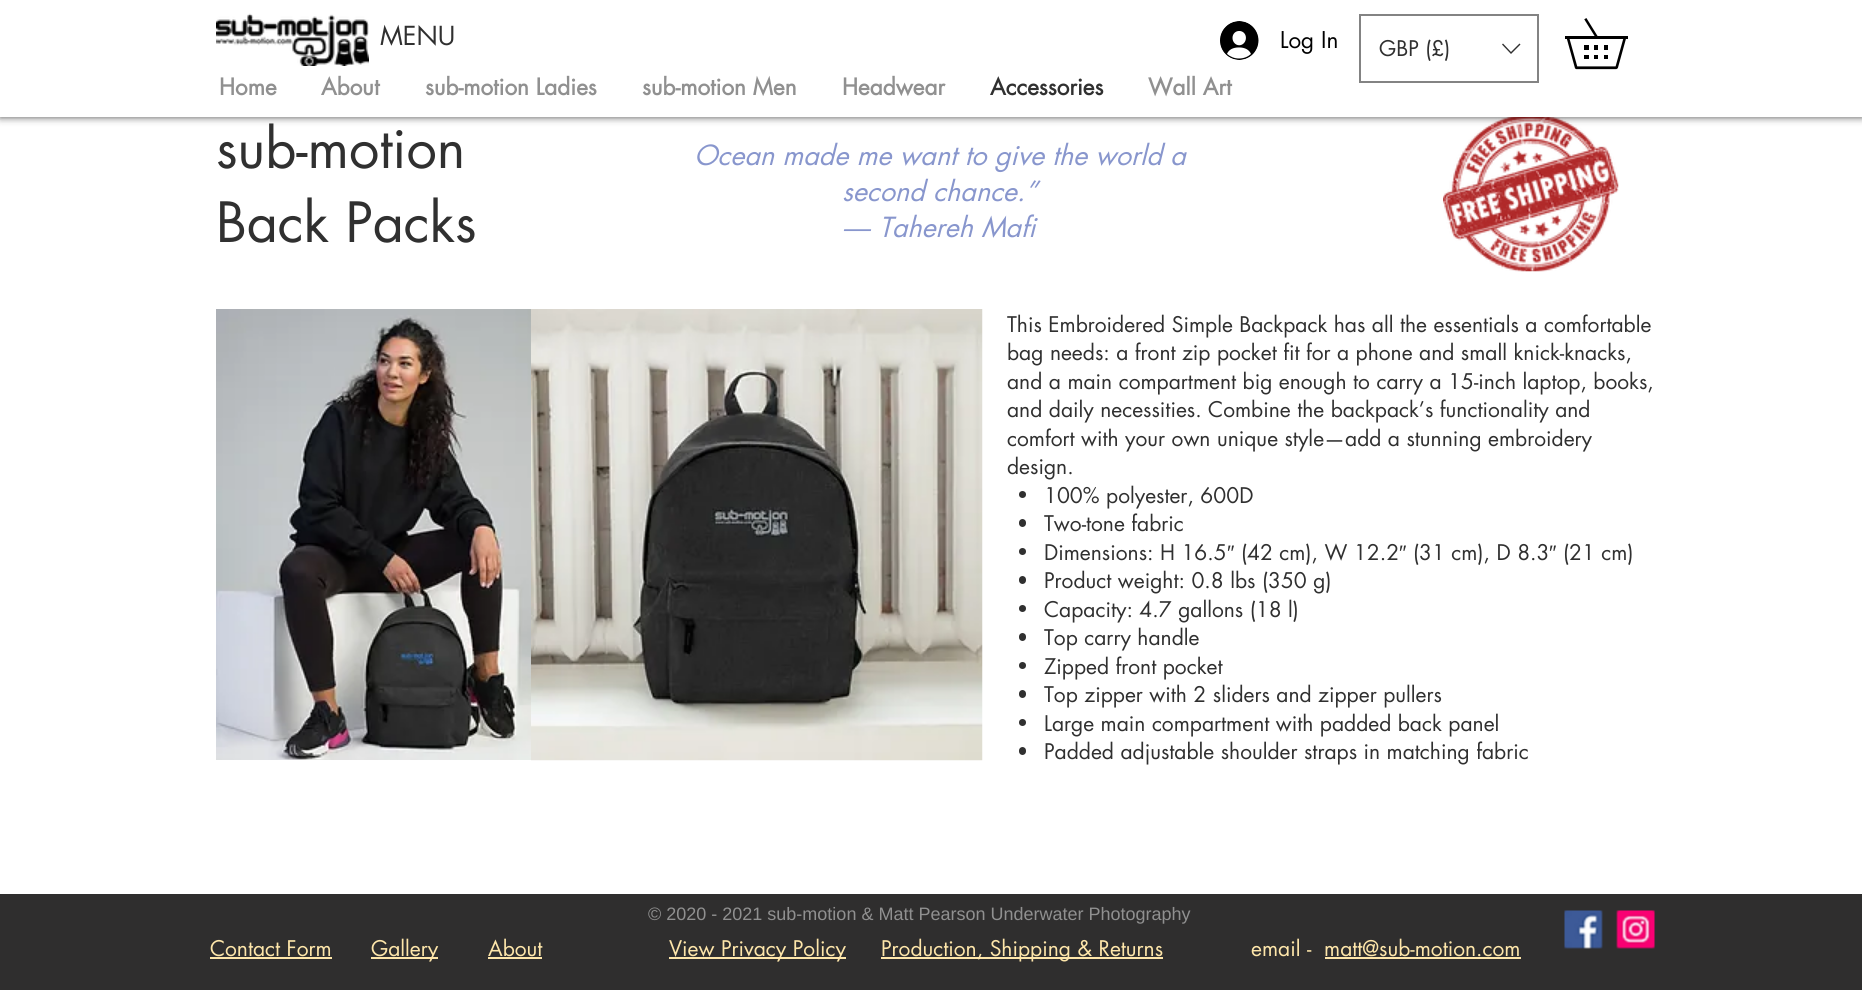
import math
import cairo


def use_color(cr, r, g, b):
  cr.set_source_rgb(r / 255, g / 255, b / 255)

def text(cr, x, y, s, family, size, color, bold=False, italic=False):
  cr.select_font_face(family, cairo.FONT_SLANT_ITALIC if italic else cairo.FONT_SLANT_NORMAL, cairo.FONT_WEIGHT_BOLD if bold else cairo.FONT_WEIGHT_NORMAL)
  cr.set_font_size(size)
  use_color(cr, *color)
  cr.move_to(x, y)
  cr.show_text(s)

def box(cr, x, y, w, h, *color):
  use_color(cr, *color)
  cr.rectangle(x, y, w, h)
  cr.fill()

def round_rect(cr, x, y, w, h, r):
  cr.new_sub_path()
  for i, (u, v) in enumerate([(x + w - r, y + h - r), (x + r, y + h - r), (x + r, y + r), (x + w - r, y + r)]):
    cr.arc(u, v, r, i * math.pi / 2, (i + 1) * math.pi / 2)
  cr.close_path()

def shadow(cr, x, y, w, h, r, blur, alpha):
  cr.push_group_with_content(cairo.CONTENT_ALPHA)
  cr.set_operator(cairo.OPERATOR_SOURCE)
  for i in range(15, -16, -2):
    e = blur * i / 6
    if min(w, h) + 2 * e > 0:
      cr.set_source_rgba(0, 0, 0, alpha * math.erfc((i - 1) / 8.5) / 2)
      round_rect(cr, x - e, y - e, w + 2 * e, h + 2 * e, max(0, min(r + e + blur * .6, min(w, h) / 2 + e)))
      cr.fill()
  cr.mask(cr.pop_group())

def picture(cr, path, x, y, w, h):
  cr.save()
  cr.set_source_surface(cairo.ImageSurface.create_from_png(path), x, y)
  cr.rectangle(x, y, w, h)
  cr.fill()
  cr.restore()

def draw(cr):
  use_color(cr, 255, 255, 255)
  cr.paint()
  picture(cr, "img_04.png", 1443, 117, 176, 155)
  use_color(cr, 0, 0, 0)
  shadow(cr, 0, 0, 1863, 117, 0, 4, 0.7)
  box(cr, 0, 0, 1862, 117, 255, 255, 255)
  picture(cr, "img_01.png", 216, 13, 153, 53)
  picture(cr, "img_02.png", 1220, 21, 39, 39)
  cr.rectangle(1360, 15, 178, 67)
  use_color(cr, 131, 131, 131)
  cr.stroke()
  use_color(cr, 48, 48, 48)
  cr.set_fill_rule(cairo.FILL_RULE_EVEN_ODD)
  cr.new_path()
  cr.move_to(1519.5, 43.5)
  cr.line_to(1520.5, 44.5)
  cr.line_to(1511, 54)
  cr.line_to(1502, 44.5)
  cr.line_to(1503, 43.5)
  cr.line_to(1511, 52)
  cr.close_path()
  cr.fill()
  picture(cr, "img_03.png", 1565, 18, 63, 52)
  picture(cr, "img_05.png", 216, 309, 315, 451)
  picture(cr, "img_06.png", 531, 309, 452, 452)
  cr.arc(1022.5, 494.5, 3.5, 0, 2 * math.pi)
  cr.fill()
  round_rect(cr, 1019, 519, 7, 8, 3.5)
  cr.fill()
  cr.arc(1022.5, 551.5, 3.5, 0, 2 * math.pi)
  cr.fill()
  round_rect(cr, 1019, 576, 7, 8, 3.5)
  cr.fill()
  cr.arc(1022.5, 608.5, 3.5, 0, 2 * math.pi)
  cr.fill()
  round_rect(cr, 1019, 633, 7, 8, 3.5)
  cr.fill()
  cr.arc(1022.5, 665.5, 3.5, 0, 2 * math.pi)
  cr.fill()
  round_rect(cr, 1019, 690, 7, 8, 3.5)
  cr.fill()
  cr.arc(1022.5, 722.5, 3.5, 0, 2 * math.pi)
  cr.fill()
  round_rect(cr, 1019, 747, 7, 8, 3.5)
  cr.fill()
  box(cr, 0, 894, 1862, 96, 47, 46, 46)
  box(cr, 371, 957, 67, 2, 254, 230, 170)
  box(cr, 488, 957, 54, 2, 254, 230, 170)
  picture(cr, "img_07.png", 1564, 910, 39, 39)
  picture(cr, "img_08.png", 1616, 910, 39, 39)
  box(cr, 210, 957, 122, 2, 254, 230, 170)
  box(cr, 669, 957, 177, 2, 254, 230, 170)
  box(cr, 881, 957, 282, 2, 254, 230, 170)
  box(cr, 1325, 957, 196, 2, 254, 230, 170)
  text(cr, 380, 45, "MENU", "futura", 25.5, (48, 48, 48))
  text(cr, 1280, 48, "Log In", "futura", 22.5, (0, 0, 0))
  text(cr, 1379, 56, "GBP (£)", "futura", 21, (48, 48, 48))
  text(cr, 219, 95, "Home", "futura", 22.5, (144, 144, 144), bold=True)
  text(cr, 321, 95, "About", "futura", 22.5, (144, 144, 144), bold=True)
  text(cr, 425, 95, "sub-motion Ladies", "futura", 22.5, (144, 144, 144), bold=True)
  text(cr, 642, 95, "sub-motion Men", "futura", 22.5, (144, 144, 144), bold=True)
  text(cr, 842, 95, "Headwear", "futura", 22.5, (144, 144, 144), bold=True)
  text(cr, 990, 95, "Accessories", "futura", 22.5, (48, 48, 48), bold=True)
  text(cr, 1148, 95, "Wall Art", "futura", 22.5, (144, 144, 144), bold=True)
  text(cr, 216, 168, "sub-motion", "futura", 54, (48, 48, 48))
  text(cr, 216, 242, "Back Packs", "futura", 54, (48, 48, 48))
  text(cr, 694, 165, "Ocean made me want to give the world a", "futura", 27, (136, 150, 205), italic=True)
  text(cr, 842, 201, "second chance.”", "futura", 27, (136, 150, 205), italic=True)
  text(cr, 844, 237, "―", "Liberation Sans", 27, (136, 150, 205), italic=True)
  text(cr, 879, 237, "Tahereh Mafi", "futura", 27, (136, 150, 205), italic=True)
  text(cr, 1007, 332, "This Embroidered Simple Backpack has all the essentials a comfortable", "futura", 21, (48, 48, 48))
  text(cr, 1007, 360, "bag needs: a front zip pocket fit for a phone and small knick-knacks,", "futura", 21, (48, 48, 48))
  text(cr, 1007, 389, "and a main compartment big enough to carry a 15-inch laptop, books,", "futura", 21, (48, 48, 48))
  text(cr, 1007, 417, "and daily necessities. Combine the backpack’s functionality and", "futura", 21, (48, 48, 48))
  text(cr, 1007, 446, "comfort with your own unique style—add a stunning embroidery", "futura", 21, (48, 48, 48))
  text(cr, 1007, 474, "design.", "futura", 21, (48, 48, 48))
  text(cr, 1044, 503, "100% polyester, 600D", "futura", 21, (48, 48, 48))
  text(cr, 1044, 531, "Two-tone fabric", "futura", 21, (48, 48, 48))
  text(cr, 1044, 560, "Dimensions: H 16.5", "futura", 21, (48, 48, 48))
  text(cr, 1227, 560, "″", "Liberation Sans", 21, (48, 48, 48))
  text(cr, 1241, 560, "(42 cm), W 12.2", "futura", 21, (48, 48, 48))
  text(cr, 1399, 560, "″", "Liberation Sans", 21, (48, 48, 48))
  text(cr, 1413, 560, "(31 cm), D 8.3", "futura", 21, (48, 48, 48))
  text(cr, 1549, 560, "″", "Liberation Sans", 21, (48, 48, 48))
  text(cr, 1563, 560, "(21 cm)", "futura", 21, (48, 48, 48))
  text(cr, 1044, 588, "Product weight: 0.8 lbs (350 g)", "futura", 21, (48, 48, 48))
  text(cr, 1044, 617, "Capacity: 4.7 gallons (18 l)", "futura", 21, (48, 48, 48))
  text(cr, 1044, 645, "Top carry handle", "futura", 21, (48, 48, 48))
  text(cr, 1044, 674, "Zipped front pocket", "futura", 21, (48, 48, 48))
  text(cr, 1044, 702, "Top zipper with 2 sliders and zipper pullers", "futura", 21, (48, 48, 48))
  text(cr, 1044, 731, "Large main compartment with padded back panel", "futura", 21, (48, 48, 48))
  text(cr, 1044, 759, "Padded adjustable shoulder straps in matching fabric", "futura", 21, (48, 48, 48))
  text(cr, 371, 956, "Gallery", "futura", 21, (254, 230, 170))
  text(cr, 488, 956, "About", "futura", 21, (254, 230, 170))
  text(cr, 648, 920, "© 2020 - 2021 sub-motion & Matt Pearson Underwater Photography", "Liberation Sans", 18, (144, 144, 144))
  text(cr, 210, 956, "Contact Form", "futura", 21, (254, 230, 170))
  text(cr, 669, 956, "View Privacy Policy", "futura", 21, (254, 230, 170))
  text(cr, 881, 956, "Production, Shipping & Returns", "futura", 21, (254, 230, 170))
  text(cr, 1251, 956, "email -", "futura", 21, (254, 230, 170))
  text(cr, 1324, 956, "matt@sub-motion.com", "futura", 21, (254, 230, 170))


surface = cairo.ImageSurface(cairo.FORMAT_RGB24, 1862, 990)
cr = cairo.Context(surface)
options = cairo.FontOptions()
options.set_hint_metrics(cairo.HINT_METRICS_OFF)
options.set_hint_style(cairo.HINT_STYLE_NONE)
cr.set_font_options(options)
cr.set_miter_limit(4)
draw(cr)
surface.write_to_png("out.png")
